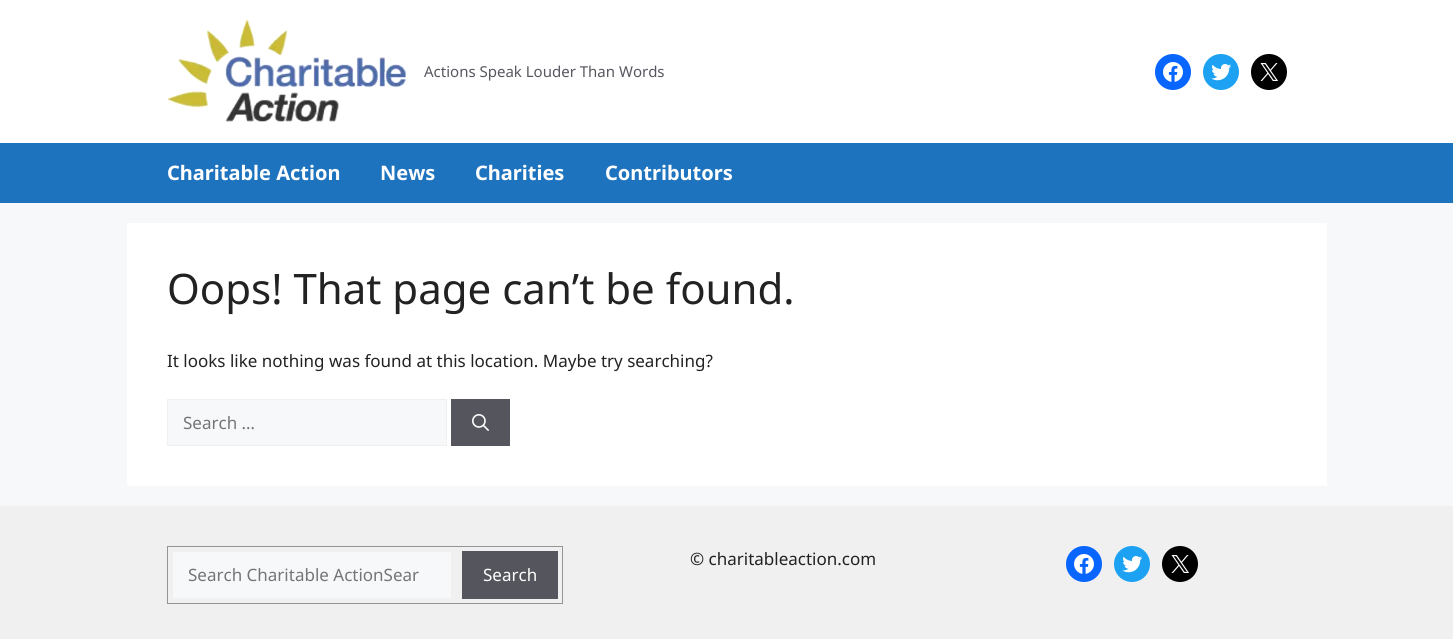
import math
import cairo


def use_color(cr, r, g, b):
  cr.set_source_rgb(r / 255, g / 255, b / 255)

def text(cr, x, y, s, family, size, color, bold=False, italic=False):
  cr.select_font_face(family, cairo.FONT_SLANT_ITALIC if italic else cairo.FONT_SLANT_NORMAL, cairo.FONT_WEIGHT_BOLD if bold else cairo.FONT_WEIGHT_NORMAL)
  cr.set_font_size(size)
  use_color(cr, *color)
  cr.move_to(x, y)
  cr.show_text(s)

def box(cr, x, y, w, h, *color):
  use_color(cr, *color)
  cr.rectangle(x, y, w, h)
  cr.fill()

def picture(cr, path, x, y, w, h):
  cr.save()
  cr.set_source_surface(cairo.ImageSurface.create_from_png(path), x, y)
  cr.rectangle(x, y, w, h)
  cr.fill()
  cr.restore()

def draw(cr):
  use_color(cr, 247, 248, 249)
  cr.paint()
  box(cr, 0, 0, 1453, 143, 255, 255, 255)
  picture(cr, "img_01.png", 167, 20, 239, 102)
  use_color(cr, 8, 102, 255)
  cr.arc(1173, 72, 18, 0, 2 * math.pi)
  cr.fill()
  picture(cr, "img_02.png", 1163, 62, 20, 20)
  use_color(cr, 29, 161, 242)
  cr.arc(1221, 72, 18, 0, 2 * math.pi)
  cr.fill()
  picture(cr, "img_03.png", 1211, 64, 20, 17)
  use_color(cr, 0, 0, 0)
  cr.arc(1269, 72, 18, 0, 2 * math.pi)
  cr.fill()
  picture(cr, "img_04.png", 1260, 63, 18, 18)
  box(cr, 0, 143, 1453, 60, 30, 115, 190)
  box(cr, 127, 223, 1200, 263, 255, 255, 255)
  use_color(cr, 247, 248, 249)
  cr.rectangle(167.5, 399.5, 279, 46)
  cr.fill_preserve()
  use_color(cr, 240, 240, 240)
  cr.set_line_width(1)
  cr.stroke()
  box(cr, 451, 399, 59, 47, 85, 85, 94)
  picture(cr, "img_05.png", 472, 414, 17, 17)
  box(cr, 0, 506, 1453, 133, 240, 240, 240)
  use_color(cr, 8, 102, 255)
  cr.arc(1084, 564, 18, 0, 2 * math.pi)
  cr.fill()
  picture(cr, "img_02.png", 1074, 554, 20, 20)
  use_color(cr, 29, 161, 242)
  cr.arc(1132, 564, 18, 0, 2 * math.pi)
  cr.fill()
  picture(cr, "img_03.png", 1122, 556, 20, 17)
  use_color(cr, 0, 0, 0)
  cr.arc(1180, 564, 18, 0, 2 * math.pi)
  cr.fill()
  picture(cr, "img_04.png", 1171, 555, 18, 18)
  cr.rectangle(167.5, 546.5, 395, 57)
  use_color(cr, 148, 148, 148)
  cr.stroke()
  box(cr, 173, 552, 278, 46, 247, 248, 249)
  box(cr, 462, 551, 96, 48, 85, 85, 94)
  text(cr, 424, 77, "Actions Speak Louder Than Words", "Noto Sans", 15, (87, 87, 96))
  text(cr, 167, 180, "Charitable Action", "Noto Sans", 20, (255, 255, 255), bold=True)
  text(cr, 380, 180, "News", "Noto Sans", 20, (255, 255, 255), bold=True)
  text(cr, 475, 180, "Charities", "Noto Sans", 20, (255, 255, 255), bold=True)
  text(cr, 605, 180, "Contributors", "Noto Sans", 20, (255, 255, 255), bold=True)
  text(cr, 167, 304, "Oops! That page can’t be found.", "Noto Sans", 42, (34, 34, 34))
  text(cr, 167, 367, "It looks like nothing was found at this location. Maybe try searching?", "Noto Sans", 17, (34, 34, 34))
  text(cr, 183, 429, "Search …", "Noto Sans", 17, (117, 117, 117))
  text(cr, 690, 565, "© charitableaction.com", "Noto Sans", 17, (34, 34, 34))
  text(cr, 188, 581, "Search Charitable ActionSear", "Noto Sans", 17, (117, 117, 117))
  text(cr, 483, 581, "Search", "Noto Sans", 17, (255, 255, 255))


surface = cairo.ImageSurface(cairo.FORMAT_RGB24, 1453, 639)
cr = cairo.Context(surface)
options = cairo.FontOptions()
options.set_hint_metrics(cairo.HINT_METRICS_OFF)
options.set_hint_style(cairo.HINT_STYLE_NONE)
cr.set_font_options(options)
cr.set_miter_limit(4)
draw(cr)
surface.write_to_png("out.png")
